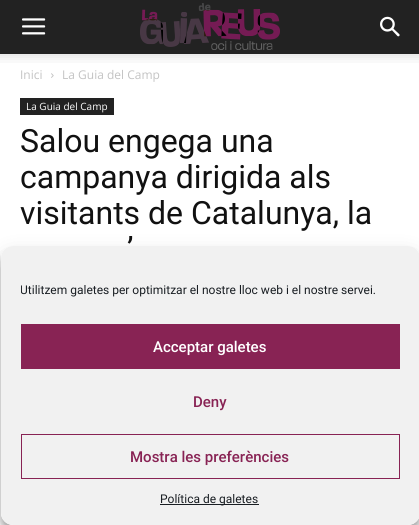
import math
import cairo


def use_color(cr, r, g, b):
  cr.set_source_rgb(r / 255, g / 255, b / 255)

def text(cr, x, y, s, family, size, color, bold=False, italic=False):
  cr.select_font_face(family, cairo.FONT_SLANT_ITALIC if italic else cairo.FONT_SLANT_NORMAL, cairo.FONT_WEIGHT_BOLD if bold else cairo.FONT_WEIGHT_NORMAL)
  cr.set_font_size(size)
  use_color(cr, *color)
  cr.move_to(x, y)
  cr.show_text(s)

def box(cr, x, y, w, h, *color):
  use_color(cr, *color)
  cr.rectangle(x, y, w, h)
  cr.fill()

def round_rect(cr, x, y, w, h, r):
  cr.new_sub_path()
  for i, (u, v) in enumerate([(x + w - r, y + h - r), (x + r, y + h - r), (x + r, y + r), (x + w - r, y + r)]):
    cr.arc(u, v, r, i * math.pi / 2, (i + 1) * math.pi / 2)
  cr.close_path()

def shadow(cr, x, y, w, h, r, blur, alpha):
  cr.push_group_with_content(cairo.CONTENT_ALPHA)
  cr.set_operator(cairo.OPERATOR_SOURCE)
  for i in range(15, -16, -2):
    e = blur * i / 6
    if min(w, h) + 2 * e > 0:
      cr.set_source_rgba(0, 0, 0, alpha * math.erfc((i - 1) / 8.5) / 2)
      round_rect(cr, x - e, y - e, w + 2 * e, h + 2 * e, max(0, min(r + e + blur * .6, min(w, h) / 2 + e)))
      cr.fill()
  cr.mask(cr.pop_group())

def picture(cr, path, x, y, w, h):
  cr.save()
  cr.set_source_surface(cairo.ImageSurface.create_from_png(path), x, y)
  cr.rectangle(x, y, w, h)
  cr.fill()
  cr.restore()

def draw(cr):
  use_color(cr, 255, 255, 255)
  cr.paint()
  box(cr, 0, 0, 419, 54, 34, 34, 34)
  picture(cr, "img_01.png", 22, 18, 24, 17)
  picture(cr, "img_02.png", 140, 3, 140, 47)
  picture(cr, "img_03.png", 380, 16, 20, 21)
  picture(cr, "img_04.png", 0, 54, 419, 9)
  picture(cr, "img_05.png", 51, 73, 3, 5)
  box(cr, 20, 98, 94, 17, 34, 34, 34)
  cr.save()
  cr.set_fill_rule(cairo.FILL_RULE_EVEN_ODD)
  cr.new_path()
  cr.move_to(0, 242)
  cr.line_to(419, 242)
  cr.line_to(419, 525)
  cr.line_to(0, 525)
  cr.close_path()
  cr.move_to(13, 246)
  cr.line_to(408, 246)
  cr.curve_to(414.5, 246, 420, 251.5, 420, 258)
  cr.line_to(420, 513)
  cr.curve_to(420, 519.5, 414.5, 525, 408, 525)
  cr.line_to(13, 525)
  cr.curve_to(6.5, 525, 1, 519.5, 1, 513)
  cr.line_to(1, 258)
  cr.curve_to(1, 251.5, 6.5, 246, 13, 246)
  cr.close_path()
  cr.clip()
  use_color(cr, 0, 0, 0)
  shadow(cr, 1, 252, 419, 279, 12, 3, 0.23)
  cr.restore()
  cr.save()
  cr.set_fill_rule(cairo.FILL_RULE_EVEN_ODD)
  cr.new_path()
  cr.move_to(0, 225)
  cr.line_to(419, 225)
  cr.line_to(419, 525)
  cr.line_to(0, 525)
  cr.close_path()
  cr.move_to(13, 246)
  cr.line_to(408, 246)
  cr.curve_to(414.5, 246, 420, 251.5, 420, 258)
  cr.line_to(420, 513)
  cr.curve_to(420, 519.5, 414.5, 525, 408, 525)
  cr.line_to(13, 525)
  cr.curve_to(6.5, 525, 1, 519.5, 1, 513)
  cr.line_to(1, 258)
  cr.curve_to(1, 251.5, 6.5, 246, 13, 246)
  cr.close_path()
  cr.clip()
  use_color(cr, 0, 0, 0)
  shadow(cr, 1, 256, 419, 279, 12, 10, 0.19)
  cr.restore()
  use_color(cr, 241, 241, 241)
  round_rect(cr, 1, 246, 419, 279, 12)
  cr.fill()
  box(cr, 21, 324, 379, 45, 136, 35, 84)
  cr.rectangle(21.5, 434.5, 378, 44)
  cr.set_line_width(1)
  cr.stroke()
  box(cr, 160, 504, 99, 1, 25, 30, 35)
  text(cr, 20, 79, "Inici", "Open Sans", 12, (195, 195, 195))
  text(cr, 62, 79, "La Guia del Camp", "Open Sans", 12, (195, 195, 195))
  text(cr, 26, 110, "La Guia del Camp", "Open Sans", 10, (255, 255, 255))
  text(cr, 20, 152, "Salou engega una", "Roboto", 32, (17, 17, 17))
  text(cr, 20, 188, "campanya dirigida als", "Roboto", 32, (17, 17, 17))
  text(cr, 20, 224, "visitants de Catalunya, la", "Roboto", 32, (17, 17, 17))
  text(cr, 127, 260, "’", "Roboto", 32, (17, 17, 17))
  cr.save()
  cr.rectangle(21, 281, 379, 23)
  cr.clip()
  text(cr, 20, 294, "Utilitzem galetes per optimitzar el nostre lloc web i el nostre servei.", "Roboto", 12, (25, 30, 35))
  cr.restore()
  text(cr, 153, 352, "Acceptar galetes", "Roboto Medium", 15, (255, 255, 255))
  text(cr, 193, 407, "Deny", "Roboto Medium", 15, (136, 35, 84))
  text(cr, 130, 462, "Mostra les preferències", "Roboto Medium", 15, (136, 35, 84))
  text(cr, 160, 503, "Política de galetes", "Roboto", 12, (25, 30, 35))


surface = cairo.ImageSurface(cairo.FORMAT_RGB24, 419, 525)
cr = cairo.Context(surface)
options = cairo.FontOptions()
options.set_hint_metrics(cairo.HINT_METRICS_OFF)
options.set_hint_style(cairo.HINT_STYLE_NONE)
cr.set_font_options(options)
cr.set_miter_limit(4)
draw(cr)
surface.write_to_png("out.png")
